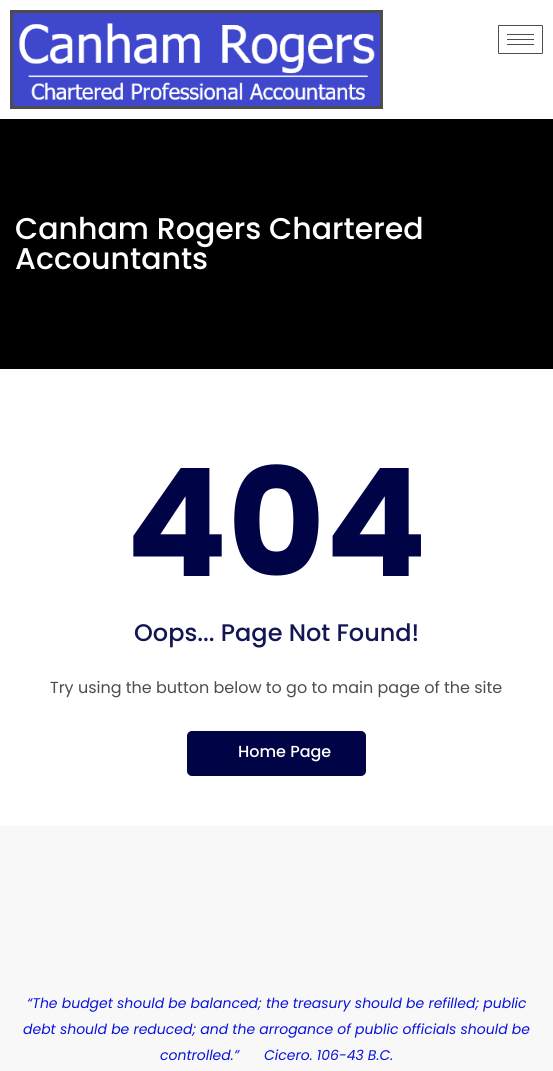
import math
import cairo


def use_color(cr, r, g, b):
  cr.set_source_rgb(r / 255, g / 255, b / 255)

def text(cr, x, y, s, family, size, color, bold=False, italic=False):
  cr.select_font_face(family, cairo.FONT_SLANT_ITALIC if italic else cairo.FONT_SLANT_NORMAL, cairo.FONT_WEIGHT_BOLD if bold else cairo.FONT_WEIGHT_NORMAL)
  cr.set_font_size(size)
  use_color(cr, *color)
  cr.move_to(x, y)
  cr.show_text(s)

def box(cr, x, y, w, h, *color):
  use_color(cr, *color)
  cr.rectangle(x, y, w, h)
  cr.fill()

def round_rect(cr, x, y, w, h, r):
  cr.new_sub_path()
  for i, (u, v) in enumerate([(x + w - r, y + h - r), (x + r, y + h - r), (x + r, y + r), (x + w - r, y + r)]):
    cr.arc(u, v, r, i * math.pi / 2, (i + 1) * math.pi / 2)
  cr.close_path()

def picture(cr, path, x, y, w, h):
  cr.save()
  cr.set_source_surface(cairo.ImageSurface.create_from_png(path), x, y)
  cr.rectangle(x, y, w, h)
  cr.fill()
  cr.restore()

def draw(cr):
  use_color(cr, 255, 255, 255)
  cr.paint()
  cr.rectangle(11.5, 11.5, 370, 96)
  use_color(cr, 77, 77, 77)
  cr.set_line_width(3)
  cr.stroke()
  picture(cr, "img_01.png", 13, 13, 367, 93)
  round_rect(cr, 498.5, 25.5, 44, 28, 0.5)
  cr.set_line_width(1)
  cr.stroke()
  box(cr, 507, 34, 27, 1, 77, 77, 77)
  box(cr, 507, 39, 27, 1, 77, 77, 77)
  box(cr, 507, 44, 27, 1, 77, 77, 77)
  box(cr, 0, 119, 553, 250, 0, 0, 0)
  use_color(cr, 0, 4, 70)
  round_rect(cr, 187, 731, 179, 45, 5)
  cr.fill()
  box(cr, 0, 826, 553, 245, 248, 248, 248)
  text(cr, 15, 239, "Canham Rogers Chartered", "Poppins Medium", 30, (255, 255, 255))
  text(cr, 15, 269, "Accountants", "Poppins Medium", 30, (255, 255, 255))
  text(cr, 126, 576, "404", "Poppins", 150, (0, 4, 70), bold=True)
  text(cr, 134, 641, "Oops... Page Not Found!", "Poppins Medium", 24, (19, 22, 82))
  text(cr, 50, 693, "Try using the button below to go to main page of the site", "Poppins", 16, (77, 77, 77))
  text(cr, 238, 757, "Home Page", "Poppins Medium", 16, (255, 255, 255))
  text(cr, 27, 1008, "“The budget should be balanced; the treasury should be refilled; public", "Poppins", 14, (9, 19, 218), italic=True)
  text(cr, 23, 1034, "debt should be reduced; and the arrogance of public officials should be", "Poppins", 14, (9, 19, 218), italic=True)
  text(cr, 160, 1060, "controlled.”      Cicero. 106-43 B.C.", "Poppins", 14, (9, 19, 218), italic=True)


surface = cairo.ImageSurface(cairo.FORMAT_RGB24, 553, 1071)
cr = cairo.Context(surface)
options = cairo.FontOptions()
options.set_hint_metrics(cairo.HINT_METRICS_OFF)
options.set_hint_style(cairo.HINT_STYLE_NONE)
cr.set_font_options(options)
cr.set_miter_limit(4)
draw(cr)
surface.write_to_png("out.png")
